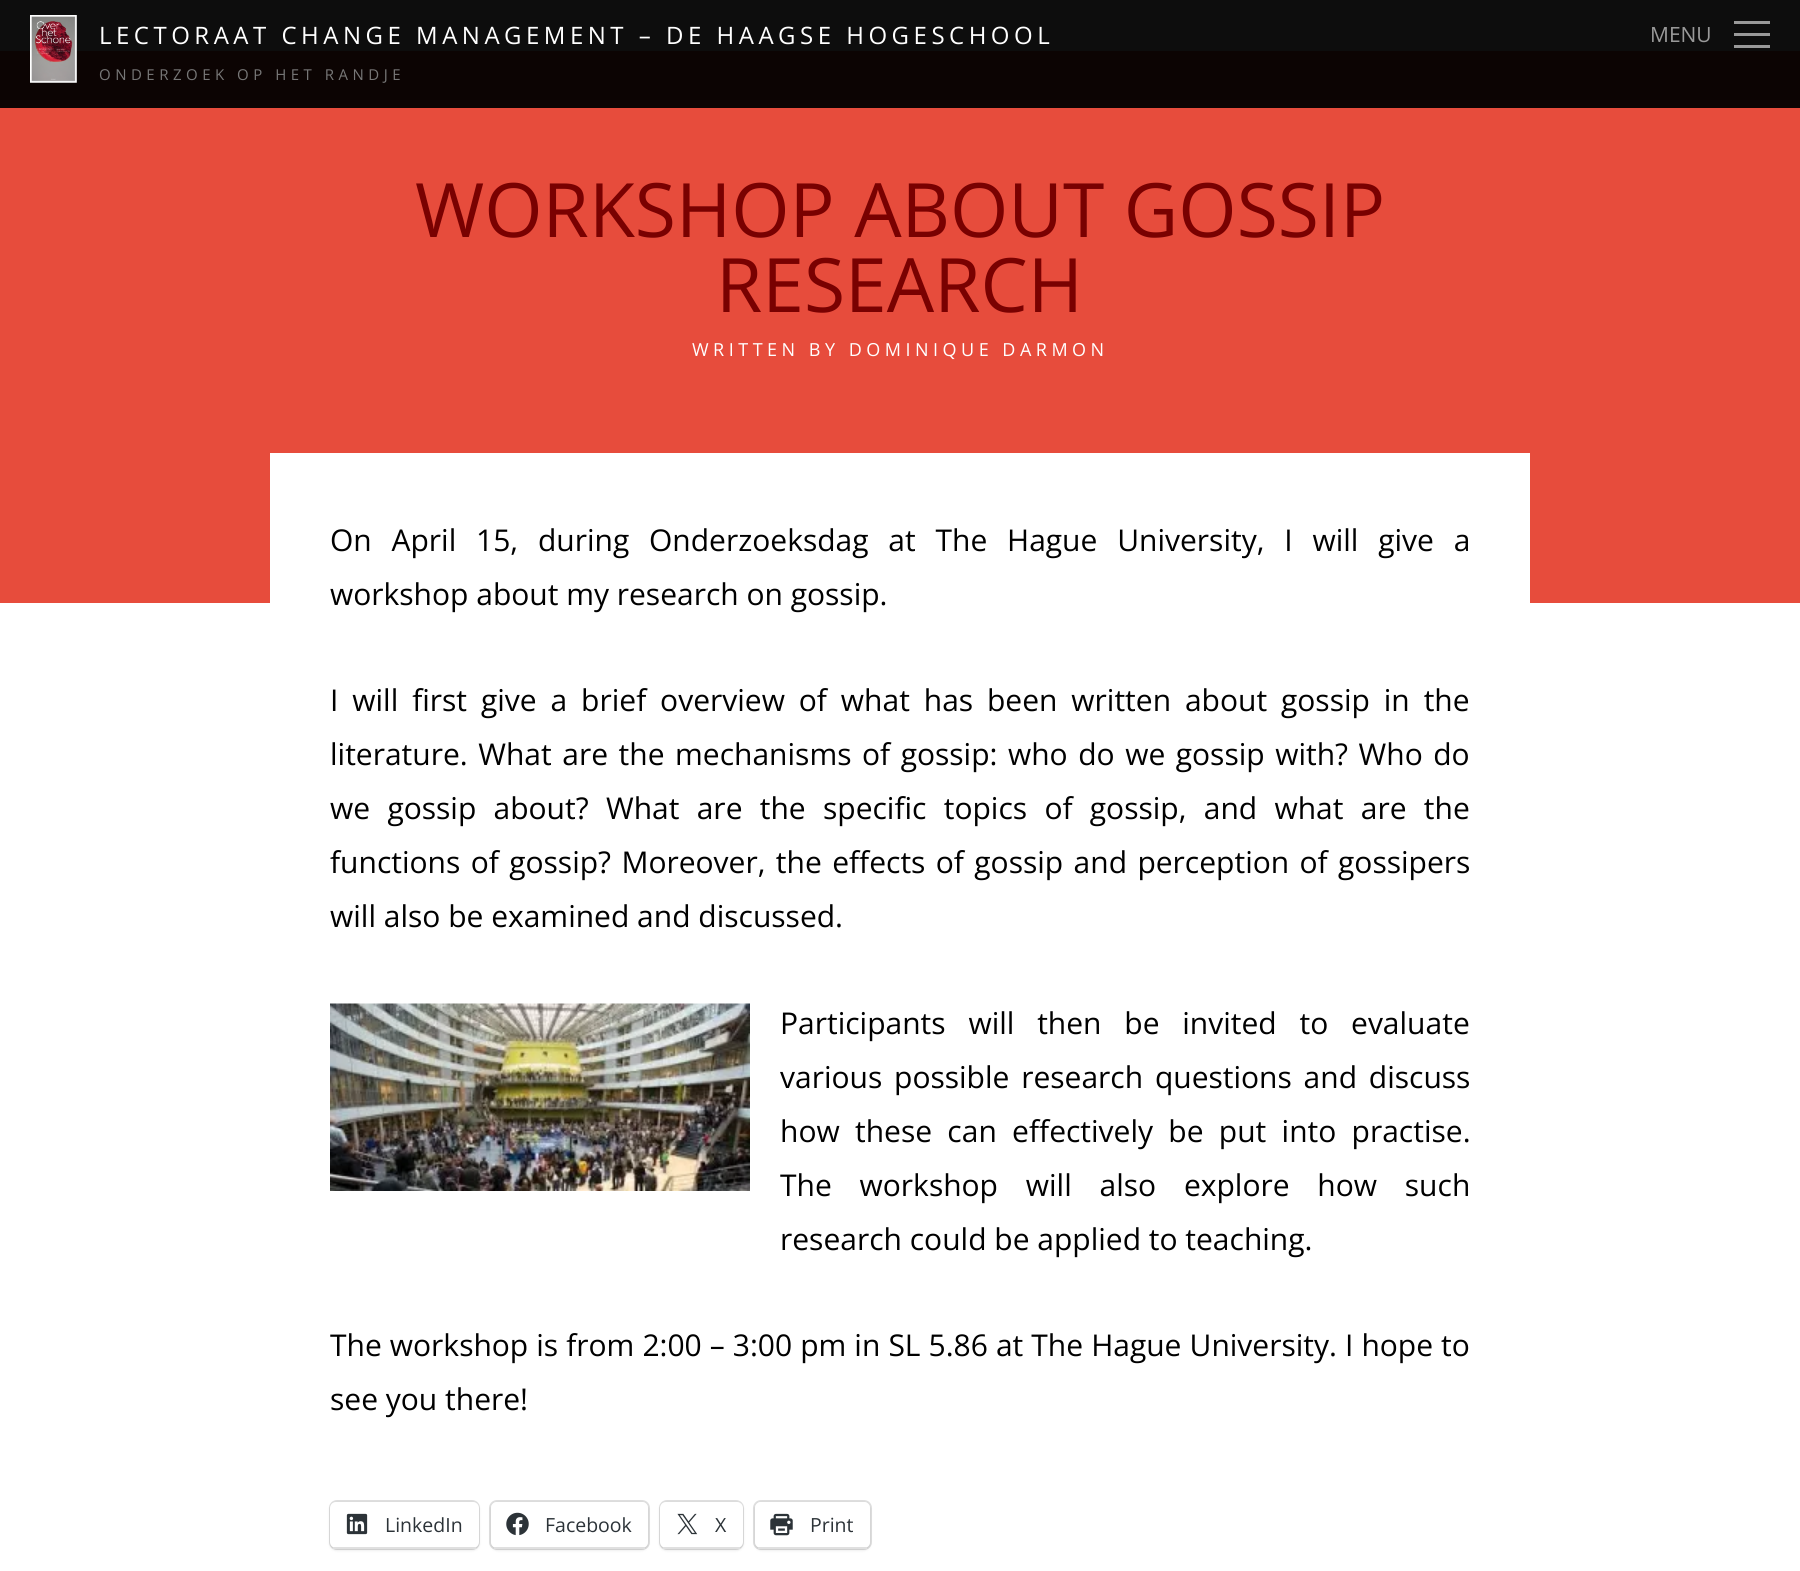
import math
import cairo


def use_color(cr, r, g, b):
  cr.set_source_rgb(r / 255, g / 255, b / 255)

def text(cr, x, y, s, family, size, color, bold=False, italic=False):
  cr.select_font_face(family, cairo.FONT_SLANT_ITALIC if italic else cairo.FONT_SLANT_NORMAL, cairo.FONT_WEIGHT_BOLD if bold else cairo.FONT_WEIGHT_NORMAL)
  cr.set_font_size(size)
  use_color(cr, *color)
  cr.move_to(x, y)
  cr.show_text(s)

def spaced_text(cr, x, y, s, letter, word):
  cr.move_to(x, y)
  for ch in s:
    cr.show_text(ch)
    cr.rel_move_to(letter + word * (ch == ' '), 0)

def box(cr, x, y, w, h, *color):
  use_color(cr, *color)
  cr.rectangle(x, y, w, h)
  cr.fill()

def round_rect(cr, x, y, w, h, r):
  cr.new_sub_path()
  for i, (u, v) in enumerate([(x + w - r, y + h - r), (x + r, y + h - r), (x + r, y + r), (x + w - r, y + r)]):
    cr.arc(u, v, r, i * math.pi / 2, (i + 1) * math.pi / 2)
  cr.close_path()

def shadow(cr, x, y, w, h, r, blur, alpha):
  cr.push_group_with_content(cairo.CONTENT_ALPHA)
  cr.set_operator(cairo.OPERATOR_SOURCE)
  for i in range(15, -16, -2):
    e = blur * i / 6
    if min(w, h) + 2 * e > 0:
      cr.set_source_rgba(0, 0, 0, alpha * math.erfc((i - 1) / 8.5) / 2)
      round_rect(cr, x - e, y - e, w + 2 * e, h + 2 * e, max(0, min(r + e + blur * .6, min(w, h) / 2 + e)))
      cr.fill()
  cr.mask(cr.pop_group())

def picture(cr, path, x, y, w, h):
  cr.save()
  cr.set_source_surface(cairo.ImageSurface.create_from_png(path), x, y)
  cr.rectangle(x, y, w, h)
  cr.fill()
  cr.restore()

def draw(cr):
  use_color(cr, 255, 255, 255)
  cr.paint()
  box(cr, 0, 0, 1800, 51, 13, 13, 13)
  box(cr, 0, 51, 1800, 57, 12, 4, 3)
  picture(cr, "img_01.png", 30, 15, 47, 68)
  box(cr, 1734, 21, 36, 3, 153, 153, 153)
  box(cr, 1734, 33, 36, 3, 153, 153, 153)
  box(cr, 1734, 45, 36, 3, 153, 153, 153)
  box(cr, 0, 108, 1800, 495, 231, 76, 60)
  box(cr, 270, 453, 1260, 150, 255, 255, 255)
  picture(cr, "img_02.png", 330, 1003, 420, 188)
  round_rect(cr, 330, 1501, 149, 48, 7)
  use_color(cr, 224, 224, 224)
  cr.stroke()
  use_color(cr, 0, 0, 0)
  shadow(cr, 330, 1503, 149, 47, 6, 1.5, 0.12)
  use_color(cr, 255, 255, 255)
  round_rect(cr, 330, 1502, 149, 46, 6)
  cr.fill()
  box(cr, 333, 1547, 143, 2, 224, 224, 224)
  picture(cr, "img_03.png", 346, 1513, 22, 22)
  round_rect(cr, 490, 1501, 159, 48, 7)
  cr.stroke()
  use_color(cr, 0, 0, 0)
  shadow(cr, 491, 1503, 157, 47, 6, 1.5, 0.12)
  use_color(cr, 255, 255, 255)
  round_rect(cr, 491, 1502, 157, 46, 6)
  cr.fill()
  box(cr, 494, 1547, 151, 2, 224, 224, 224)
  picture(cr, "img_04.png", 506, 1512, 23, 24)
  round_rect(cr, 660, 1501, 83, 48, 7)
  cr.stroke()
  use_color(cr, 0, 0, 0)
  shadow(cr, 660, 1503, 83, 47, 6, 1.5, 0.12)
  use_color(cr, 255, 255, 255)
  round_rect(cr, 660, 1502, 83, 46, 6)
  cr.fill()
  box(cr, 663, 1547, 77, 2, 224, 224, 224)
  picture(cr, "img_05.png", 677, 1513, 21, 22)
  round_rect(cr, 754, 1501, 117, 48, 7)
  cr.stroke()
  use_color(cr, 0, 0, 0)
  shadow(cr, 755, 1503, 115, 47, 6, 1.5, 0.12)
  use_color(cr, 255, 255, 255)
  round_rect(cr, 755, 1502, 115, 46, 6)
  cr.fill()
  box(cr, 758, 1547, 109, 2, 224, 224, 224)
  picture(cr, "img_06.png", 770, 1513, 23, 23)
  cr.select_font_face("Open Sans")
  cr.set_font_size(24)
  use_color(cr, 255, 255, 255)
  spaced_text(cr, 99, 44, "LECTORAAT CHANGE MANAGEMENT – DE HAAGSE HOGESCHOOL", 4.5, 0)
  cr.set_font_size(15)
  use_color(cr, 119, 119, 119)
  spaced_text(cr, 99, 80, "ONDERZOEK OP HET RANDJE", 4.5, 0)
  text(cr, 1650, 42, "MENU", "Open Sans", 21, (153, 153, 153))
  text(cr, 415, 237, "WORKSHOP ABOUT GOSSIP", "Open Sans", 75, (121, 1, 1))
  text(cr, 716, 312, "RESEARCH", "Open Sans", 75, (121, 1, 1))
  cr.set_font_size(18)
  use_color(cr, 255, 255, 255)
  spaced_text(cr, 692, 356, "WRITTEN BY DOMINIQUE DARMON", 4.5, 0)
  cr.set_font_size(30)
  use_color(cr, 0, 0, 0)
  spaced_text(cr, 330, 551, "On April 15, during Onderzoeksdag at The Hague University, I will give a", 0, 12)
  text(cr, 330, 605, "workshop about my research on gossip.", "Open Sans", 30, (0, 0, 0))
  spaced_text(cr, 330, 711, "I will first give a brief overview of what has been written about gossip in the", 0, 6.1)
  spaced_text(cr, 330, 765, "literature. What are the mechanisms of gossip: who do we gossip with? Who do", 0, 2.75)
  spaced_text(cr, 330, 819, "we gossip about? What are the specific topics of gossip, and what are the", 0, 9.5)
  spaced_text(cr, 330, 873, "functions of gossip? Moreover, the effects of gossip and perception of gossipers", 0, 2.6)
  text(cr, 330, 927, "will also be examined and discussed.", "Open Sans", 30, (0, 0, 0))
  spaced_text(cr, 780, 1034, "Participants will then be invited to evaluate", 0, 15)
  spaced_text(cr, 780, 1088, "various possible research questions and discuss", 0, 4)
  spaced_text(cr, 780, 1142, "how these can effectively be put into practise.", 0, 7.5)
  spaced_text(cr, 780, 1196, "The workshop will also explore how such", 0, 20)
  text(cr, 780, 1250, "research could be applied to teaching.", "Open Sans", 30, (0, 0, 0))
  spaced_text(cr, 330, 1356, "The workshop is from 2:00 – 3:00 pm in SL 5.86 at The Hague University. I hope to", 0, 0.25)
  text(cr, 330, 1410, "see you there!", "Open Sans", 30, (0, 0, 0))
  text(cr, 385, 1532, "LinkedIn", "Open Sans", 19.5, (44, 51, 56))
  text(cr, 545, 1532, "Facebook", "Open Sans", 19.5, (44, 51, 56))
  text(cr, 715, 1532, "X", "Open Sans", 19.5, (44, 51, 56))
  text(cr, 810, 1532, "Print", "Open Sans", 19.5, (44, 51, 56))


surface = cairo.ImageSurface(cairo.FORMAT_RGB24, 1800, 1571)
cr = cairo.Context(surface)
options = cairo.FontOptions()
options.set_hint_metrics(cairo.HINT_METRICS_OFF)
options.set_hint_style(cairo.HINT_STYLE_NONE)
cr.set_font_options(options)
cr.set_miter_limit(4)
draw(cr)
surface.write_to_png("out.png")
